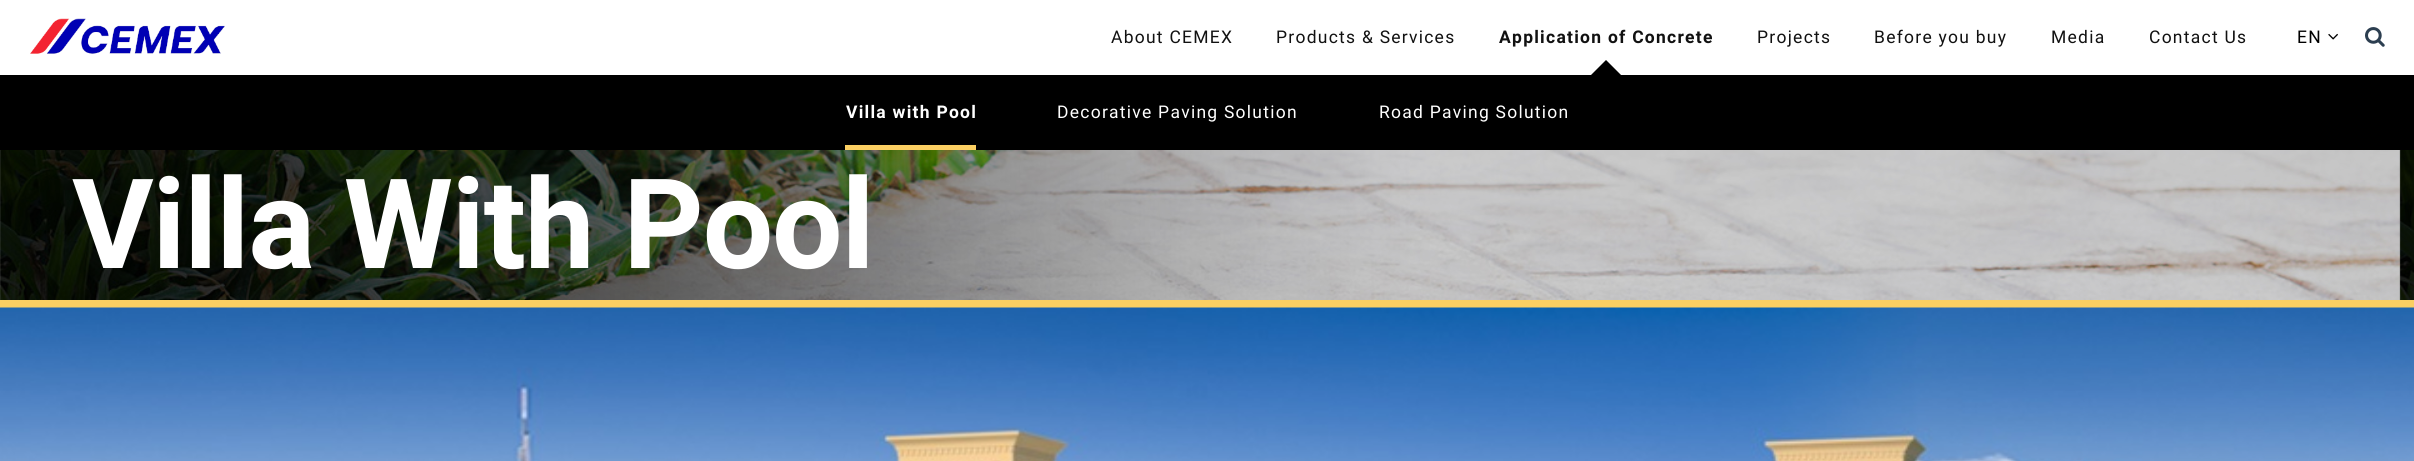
import math
import cairo


def use_color(cr, r, g, b):
  cr.set_source_rgb(r / 255, g / 255, b / 255)

def spaced_text(cr, x, y, s, letter, word):
  cr.move_to(x, y)
  for ch in s:
    cr.show_text(ch)
    cr.rel_move_to(letter + word * (ch == ' '), 0)

def box(cr, x, y, w, h, *color):
  use_color(cr, *color)
  cr.rectangle(x, y, w, h)
  cr.fill()

def picture(cr, path, x, y, w, h):
  cr.save()
  cr.set_source_surface(cairo.ImageSurface.create_from_png(path), x, y)
  cr.rectangle(x, y, w, h)
  cr.fill()
  cr.restore()

def draw(cr):
  use_color(cr, 255, 255, 255)
  cr.paint()
  picture(cr, "img_01.png", 30, 18, 195, 36)
  use_color(cr, 0, 0, 0)
  cr.new_path()
  cr.move_to(1621, 75)
  cr.line_to(1591, 75)
  cr.line_to(1606, 60)
  cr.close_path()
  cr.fill()
  picture(cr, "img_02.png", 2328, 33, 10, 7)
  picture(cr, "img_03.png", 2365, 27, 20, 20)
  box(cr, 0, 75, 2414, 75, 0, 0, 0)
  box(cr, 845, 145, 131, 5, 251, 207, 98)
  picture(cr, "img_04.png", 0, 150, 2414, 150)
  box(cr, 0, 300, 2414, 8, 251, 207, 98)
  picture(cr, "img_05.png", 0, 307, 2414, 154)
  cr.select_font_face("Roboto")
  cr.set_font_size(17.5)
  use_color(cr, 17, 17, 17)
  spaced_text(cr, 1111, 43, "About CEMEX", 1.25, 0)
  spaced_text(cr, 1276, 43, "Products & Services", 1.25, 0)
  cr.select_font_face("Roboto", cairo.FONT_SLANT_NORMAL, cairo.FONT_WEIGHT_BOLD)
  spaced_text(cr, 1499, 43, "Application of Concrete", 1.25, 0)
  cr.select_font_face("Roboto")
  spaced_text(cr, 1757, 43, "Projects", 1.25, 0)
  spaced_text(cr, 1874, 43, "Before you buy", 1.25, 0)
  spaced_text(cr, 2051, 43, "Media", 1.25, 0)
  spaced_text(cr, 2149, 43, "Contact Us", 1.25, 0)
  use_color(cr, 0, 0, 0)
  spaced_text(cr, 2297, 43, "EN", 1.25, 0)
  cr.select_font_face("Roboto", cairo.FONT_SLANT_NORMAL, cairo.FONT_WEIGHT_BOLD)
  use_color(cr, 255, 255, 255)
  spaced_text(cr, 846, 118, "Villa with Pool", 1.25, 0)
  cr.select_font_face("Roboto")
  spaced_text(cr, 1057, 118, "Decorative Paving Solution", 1.25, 0)
  spaced_text(cr, 1379, 118, "Road Paving Solution", 1.25, 0)
  cr.select_font_face("Roboto", cairo.FONT_SLANT_NORMAL, cairo.FONT_WEIGHT_BOLD)
  cr.set_font_size(125)
  spaced_text(cr, 72, 268, "Villa With Pool", -1.25, 0)


surface = cairo.ImageSurface(cairo.FORMAT_RGB24, 2414, 461)
cr = cairo.Context(surface)
options = cairo.FontOptions()
options.set_hint_metrics(cairo.HINT_METRICS_OFF)
options.set_hint_style(cairo.HINT_STYLE_NONE)
cr.set_font_options(options)
cr.set_miter_limit(4)
draw(cr)
surface.write_to_png("out.png")
